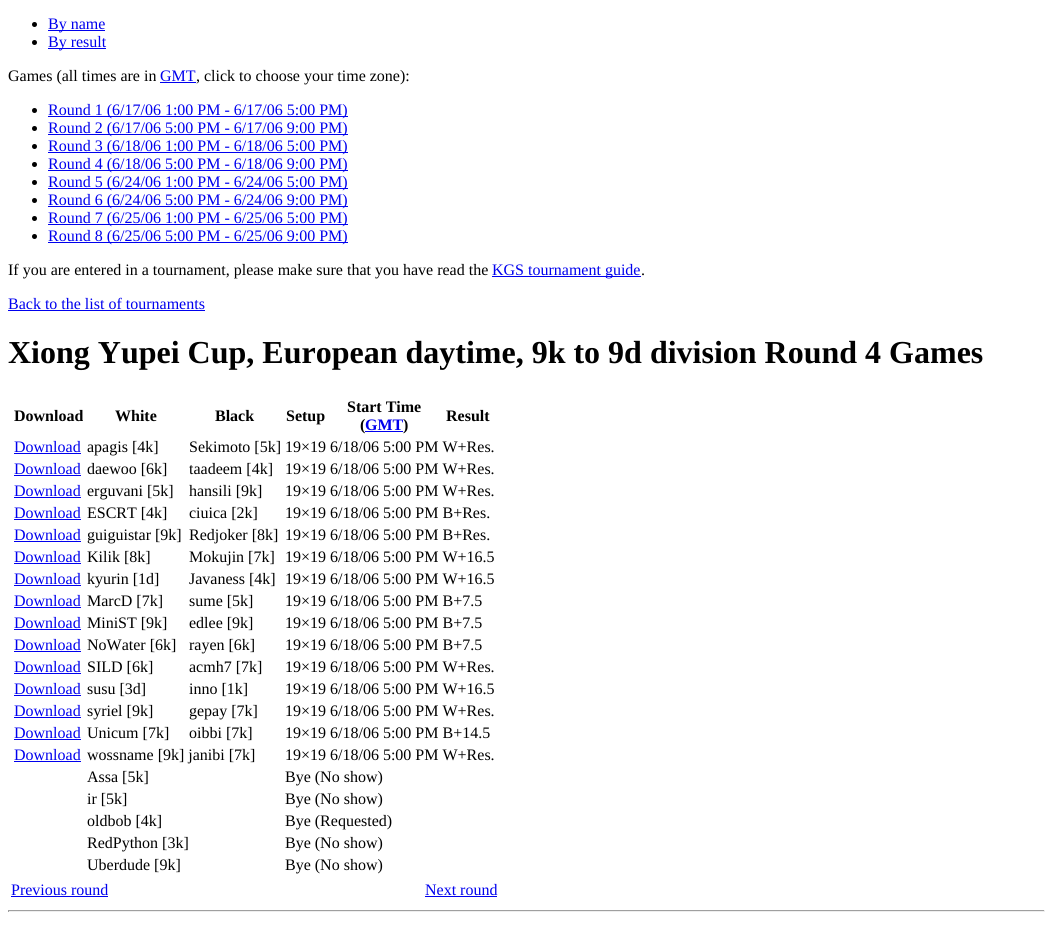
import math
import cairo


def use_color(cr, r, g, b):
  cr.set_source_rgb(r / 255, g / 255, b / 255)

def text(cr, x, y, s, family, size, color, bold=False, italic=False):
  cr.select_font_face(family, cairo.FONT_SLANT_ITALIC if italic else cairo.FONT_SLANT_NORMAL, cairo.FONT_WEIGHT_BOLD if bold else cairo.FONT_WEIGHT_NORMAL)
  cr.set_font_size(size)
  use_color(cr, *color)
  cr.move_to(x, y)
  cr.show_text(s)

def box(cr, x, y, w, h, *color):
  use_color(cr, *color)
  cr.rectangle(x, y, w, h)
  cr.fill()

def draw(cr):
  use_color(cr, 255, 255, 255)
  cr.paint()
  use_color(cr, 0, 0, 0)
  cr.arc(34.5, 24.5, 2.5, 0, 2 * math.pi)
  cr.fill()
  box(cr, 48, 30, 57, 1, 0, 0, 238)
  use_color(cr, 0, 0, 0)
  cr.arc(34.5, 42.5, 2.5, 0, 2 * math.pi)
  cr.fill()
  box(cr, 48, 48, 58, 1, 0, 0, 238)
  box(cr, 160, 82, 36, 1, 0, 0, 238)
  use_color(cr, 0, 0, 0)
  cr.arc(34.5, 110.5, 2.5, 0, 2 * math.pi)
  cr.fill()
  box(cr, 48, 116, 300, 1, 0, 0, 238)
  use_color(cr, 0, 0, 0)
  cr.arc(34.5, 128.5, 2.5, 0, 2 * math.pi)
  cr.fill()
  box(cr, 48, 134, 300, 1, 0, 0, 238)
  use_color(cr, 0, 0, 0)
  cr.arc(34.5, 146.5, 2.5, 0, 2 * math.pi)
  cr.fill()
  box(cr, 48, 152, 300, 1, 0, 0, 238)
  use_color(cr, 0, 0, 0)
  cr.arc(34.5, 164.5, 2.5, 0, 2 * math.pi)
  cr.fill()
  box(cr, 48, 170, 300, 1, 0, 0, 238)
  use_color(cr, 0, 0, 0)
  cr.arc(34.5, 182.5, 2.5, 0, 2 * math.pi)
  cr.fill()
  box(cr, 48, 188, 300, 1, 0, 0, 238)
  use_color(cr, 0, 0, 0)
  cr.arc(34.5, 200.5, 2.5, 0, 2 * math.pi)
  cr.fill()
  box(cr, 48, 206, 300, 1, 0, 0, 238)
  use_color(cr, 0, 0, 0)
  cr.arc(34.5, 218.5, 2.5, 0, 2 * math.pi)
  cr.fill()
  box(cr, 48, 224, 300, 1, 0, 0, 238)
  use_color(cr, 0, 0, 0)
  cr.arc(34.5, 236.5, 2.5, 0, 2 * math.pi)
  cr.fill()
  box(cr, 48, 242, 300, 1, 0, 0, 238)
  box(cr, 492, 276, 149, 1, 0, 0, 238)
  box(cr, 8, 310, 197, 1, 0, 0, 238)
  box(cr, 365, 431, 38, 1, 0, 0, 238)
  box(cr, 14, 453, 67, 1, 0, 0, 238)
  box(cr, 14, 475, 67, 1, 0, 0, 238)
  box(cr, 14, 497, 67, 1, 0, 0, 238)
  box(cr, 14, 519, 67, 1, 0, 0, 238)
  box(cr, 14, 541, 67, 1, 0, 0, 238)
  box(cr, 14, 563, 67, 1, 0, 0, 238)
  box(cr, 14, 585, 67, 1, 0, 0, 238)
  box(cr, 14, 607, 67, 1, 0, 0, 238)
  box(cr, 14, 629, 67, 1, 0, 0, 238)
  box(cr, 14, 651, 67, 1, 0, 0, 238)
  box(cr, 14, 673, 67, 1, 0, 0, 238)
  box(cr, 14, 695, 67, 1, 0, 0, 238)
  box(cr, 14, 717, 67, 1, 0, 0, 238)
  box(cr, 14, 739, 67, 1, 0, 0, 238)
  box(cr, 14, 761, 67, 1, 0, 0, 238)
  box(cr, 11, 896, 97, 1, 0, 0, 238)
  box(cr, 425, 896, 72, 1, 0, 0, 238)
  box(cr, 8, 910, 1037, 1, 159, 159, 159)
  box(cr, 1044, 910, 1, 2, 238, 238, 238)
  box(cr, 8, 911, 1037, 1, 238, 238, 238)
  box(cr, 8, 910, 1, 2, 159, 159, 159)
  text(cr, 48, 29, "By name", "Liberation Serif", 16, (0, 0, 238))
  text(cr, 48, 47, "By result", "Liberation Serif", 16, (0, 0, 238))
  text(cr, 8, 81, "Games (all times are in", "Liberation Serif", 16, (0, 0, 0))
  text(cr, 160, 81, "GMT", "Liberation Serif", 16, (0, 0, 238))
  text(cr, 196, 81, ", click to choose your time zone):", "Liberation Serif", 16, (0, 0, 0))
  text(cr, 48, 115, "Round 1 (6/17/06 1:00 PM - 6/17/06 5:00 PM)", "Liberation Serif", 16, (0, 0, 238))
  text(cr, 48, 133, "Round 2 (6/17/06 5:00 PM - 6/17/06 9:00 PM)", "Liberation Serif", 16, (0, 0, 238))
  text(cr, 48, 151, "Round 3 (6/18/06 1:00 PM - 6/18/06 5:00 PM)", "Liberation Serif", 16, (0, 0, 238))
  text(cr, 48, 169, "Round 4 (6/18/06 5:00 PM - 6/18/06 9:00 PM)", "Liberation Serif", 16, (0, 0, 238))
  text(cr, 48, 187, "Round 5 (6/24/06 1:00 PM - 6/24/06 5:00 PM)", "Liberation Serif", 16, (0, 0, 238))
  text(cr, 48, 205, "Round 6 (6/24/06 5:00 PM - 6/24/06 9:00 PM)", "Liberation Serif", 16, (0, 0, 238))
  text(cr, 48, 223, "Round 7 (6/25/06 1:00 PM - 6/25/06 5:00 PM)", "Liberation Serif", 16, (0, 0, 238))
  text(cr, 48, 241, "Round 8 (6/25/06 5:00 PM - 6/25/06 9:00 PM)", "Liberation Serif", 16, (0, 0, 238))
  text(cr, 8, 275, "If you are entered in a tournament, please make sure that you have read the", "Liberation Serif", 16, (0, 0, 0))
  text(cr, 492, 275, "KGS tournament guide", "Liberation Serif", 16, (0, 0, 238))
  text(cr, 641, 275, ".", "Liberation Serif", 16, (0, 0, 0))
  text(cr, 8, 309, "Back to the list of tournaments", "Liberation Serif", 16, (0, 0, 238))
  text(cr, 8, 363, "Xiong Yupei Cup, European daytime, 9k to 9d division Round 4 Games", "Liberation Serif", 32, (0, 0, 0), bold=True)
  text(cr, 14, 421, "Download", "Liberation Serif", 16, (0, 0, 0), bold=True)
  text(cr, 115, 421, "White", "Liberation Serif", 16, (0, 0, 0), bold=True)
  text(cr, 215, 421, "Black", "Liberation Serif", 16, (0, 0, 0), bold=True)
  text(cr, 286, 421, "Setup", "Liberation Serif", 16, (0, 0, 0), bold=True)
  text(cr, 347, 412, "Start Time", "Liberation Serif", 16, (0, 0, 0), bold=True)
  text(cr, 360, 430, "(", "Liberation Serif", 16, (0, 0, 0), bold=True)
  text(cr, 365, 430, "GMT", "Liberation Serif", 16, (0, 0, 238), bold=True)
  text(cr, 403, 430, ")", "Liberation Serif", 16, (0, 0, 0), bold=True)
  text(cr, 446, 421, "Result", "Liberation Serif", 16, (0, 0, 0), bold=True)
  text(cr, 14, 452, "Download", "Liberation Serif", 16, (0, 0, 238))
  text(cr, 87, 452, "apagis [4k]", "Liberation Serif", 16, (0, 0, 0))
  text(cr, 189, 452, "Sekimoto [5k] 19×19 6/18/06 5:00 PM W+Res.", "Liberation Serif", 16, (0, 0, 0))
  text(cr, 14, 474, "Download", "Liberation Serif", 16, (0, 0, 238))
  text(cr, 87, 474, "daewoo [6k]", "Liberation Serif", 16, (0, 0, 0))
  text(cr, 189, 474, "taadeem [4k]", "Liberation Serif", 16, (0, 0, 0))
  text(cr, 285, 474, "19×19 6/18/06 5:00 PM W+Res.", "Liberation Serif", 16, (0, 0, 0))
  text(cr, 14, 496, "Download", "Liberation Serif", 16, (0, 0, 238))
  text(cr, 87, 496, "erguvani [5k]", "Liberation Serif", 16, (0, 0, 0))
  text(cr, 189, 496, "hansili [9k]", "Liberation Serif", 16, (0, 0, 0))
  text(cr, 285, 496, "19×19 6/18/06 5:00 PM W+Res.", "Liberation Serif", 16, (0, 0, 0))
  text(cr, 14, 518, "Download", "Liberation Serif", 16, (0, 0, 238))
  text(cr, 87, 518, "ESCRT [4k]", "Liberation Serif", 16, (0, 0, 0))
  text(cr, 189, 518, "ciuica [2k]", "Liberation Serif", 16, (0, 0, 0))
  text(cr, 285, 518, "19×19 6/18/06 5:00 PM B+Res.", "Liberation Serif", 16, (0, 0, 0))
  text(cr, 14, 540, "Download", "Liberation Serif", 16, (0, 0, 238))
  text(cr, 87, 540, "guiguistar [9k]", "Liberation Serif", 16, (0, 0, 0))
  text(cr, 189, 540, "Redjoker [8k]", "Liberation Serif", 16, (0, 0, 0))
  text(cr, 285, 540, "19×19 6/18/06 5:00 PM B+Res.", "Liberation Serif", 16, (0, 0, 0))
  text(cr, 14, 562, "Download", "Liberation Serif", 16, (0, 0, 238))
  text(cr, 87, 562, "Kilik [8k]", "Liberation Serif", 16, (0, 0, 0))
  text(cr, 189, 562, "Mokujin [7k]", "Liberation Serif", 16, (0, 0, 0))
  text(cr, 285, 562, "19×19 6/18/06 5:00 PM W+16.5", "Liberation Serif", 16, (0, 0, 0))
  text(cr, 14, 584, "Download", "Liberation Serif", 16, (0, 0, 238))
  text(cr, 87, 584, "kyurin [1d]", "Liberation Serif", 16, (0, 0, 0))
  text(cr, 189, 584, "Javaness [4k]", "Liberation Serif", 16, (0, 0, 0))
  text(cr, 285, 584, "19×19 6/18/06 5:00 PM W+16.5", "Liberation Serif", 16, (0, 0, 0))
  text(cr, 14, 606, "Download", "Liberation Serif", 16, (0, 0, 238))
  text(cr, 87, 606, "MarcD [7k]", "Liberation Serif", 16, (0, 0, 0))
  text(cr, 189, 606, "sume [5k]", "Liberation Serif", 16, (0, 0, 0))
  text(cr, 285, 606, "19×19 6/18/06 5:00 PM B+7.5", "Liberation Serif", 16, (0, 0, 0))
  text(cr, 14, 628, "Download", "Liberation Serif", 16, (0, 0, 238))
  text(cr, 87, 628, "MiniST [9k]", "Liberation Serif", 16, (0, 0, 0))
  text(cr, 189, 628, "edlee [9k]", "Liberation Serif", 16, (0, 0, 0))
  text(cr, 285, 628, "19×19 6/18/06 5:00 PM B+7.5", "Liberation Serif", 16, (0, 0, 0))
  text(cr, 14, 650, "Download", "Liberation Serif", 16, (0, 0, 238))
  text(cr, 87, 650, "NoWater [6k]", "Liberation Serif", 16, (0, 0, 0))
  text(cr, 189, 650, "rayen [6k]", "Liberation Serif", 16, (0, 0, 0))
  text(cr, 285, 650, "19×19 6/18/06 5:00 PM B+7.5", "Liberation Serif", 16, (0, 0, 0))
  text(cr, 14, 672, "Download", "Liberation Serif", 16, (0, 0, 238))
  text(cr, 87, 672, "SILD [6k]", "Liberation Serif", 16, (0, 0, 0))
  text(cr, 189, 672, "acmh7 [7k]", "Liberation Serif", 16, (0, 0, 0))
  text(cr, 285, 672, "19×19 6/18/06 5:00 PM W+Res.", "Liberation Serif", 16, (0, 0, 0))
  text(cr, 14, 694, "Download", "Liberation Serif", 16, (0, 0, 238))
  text(cr, 87, 694, "susu [3d]", "Liberation Serif", 16, (0, 0, 0))
  text(cr, 189, 694, "inno [1k]", "Liberation Serif", 16, (0, 0, 0))
  text(cr, 285, 694, "19×19 6/18/06 5:00 PM W+16.5", "Liberation Serif", 16, (0, 0, 0))
  text(cr, 14, 716, "Download", "Liberation Serif", 16, (0, 0, 238))
  text(cr, 87, 716, "syriel [9k]", "Liberation Serif", 16, (0, 0, 0))
  text(cr, 189, 716, "gepay [7k]", "Liberation Serif", 16, (0, 0, 0))
  text(cr, 285, 716, "19×19 6/18/06 5:00 PM W+Res.", "Liberation Serif", 16, (0, 0, 0))
  text(cr, 14, 738, "Download", "Liberation Serif", 16, (0, 0, 238))
  text(cr, 87, 738, "Unicum [7k]", "Liberation Serif", 16, (0, 0, 0))
  text(cr, 189, 738, "oibbi [7k]", "Liberation Serif", 16, (0, 0, 0))
  text(cr, 285, 738, "19×19 6/18/06 5:00 PM B+14.5", "Liberation Serif", 16, (0, 0, 0))
  text(cr, 14, 760, "Download", "Liberation Serif", 16, (0, 0, 238))
  text(cr, 87, 760, "wossname [9k] janibi [7k]", "Liberation Serif", 16, (0, 0, 0))
  text(cr, 285, 760, "19×19 6/18/06 5:00 PM W+Res.", "Liberation Serif", 16, (0, 0, 0))
  text(cr, 87, 782, "Assa [5k]", "Liberation Serif", 16, (0, 0, 0))
  text(cr, 285, 782, "Bye (No show)", "Liberation Serif", 16, (0, 0, 0))
  text(cr, 87, 804, "ir [5k]", "Liberation Serif", 16, (0, 0, 0))
  text(cr, 285, 804, "Bye (No show)", "Liberation Serif", 16, (0, 0, 0))
  text(cr, 87, 826, "oldbob [4k]", "Liberation Serif", 16, (0, 0, 0))
  text(cr, 285, 826, "Bye (Requested)", "Liberation Serif", 16, (0, 0, 0))
  text(cr, 87, 848, "RedPython [3k]", "Liberation Serif", 16, (0, 0, 0))
  text(cr, 285, 848, "Bye (No show)", "Liberation Serif", 16, (0, 0, 0))
  text(cr, 87, 870, "Uberdude [9k]", "Liberation Serif", 16, (0, 0, 0))
  text(cr, 285, 870, "Bye (No show)", "Liberation Serif", 16, (0, 0, 0))
  text(cr, 11, 895, "Previous round", "Liberation Serif", 16, (0, 0, 238))
  text(cr, 425, 895, "Next round", "Liberation Serif", 16, (0, 0, 238))


surface = cairo.ImageSurface(cairo.FORMAT_RGB24, 1053, 936)
cr = cairo.Context(surface)
options = cairo.FontOptions()
options.set_hint_metrics(cairo.HINT_METRICS_OFF)
options.set_hint_style(cairo.HINT_STYLE_NONE)
cr.set_font_options(options)
cr.set_miter_limit(4)
draw(cr)
surface.write_to_png("out.png")
